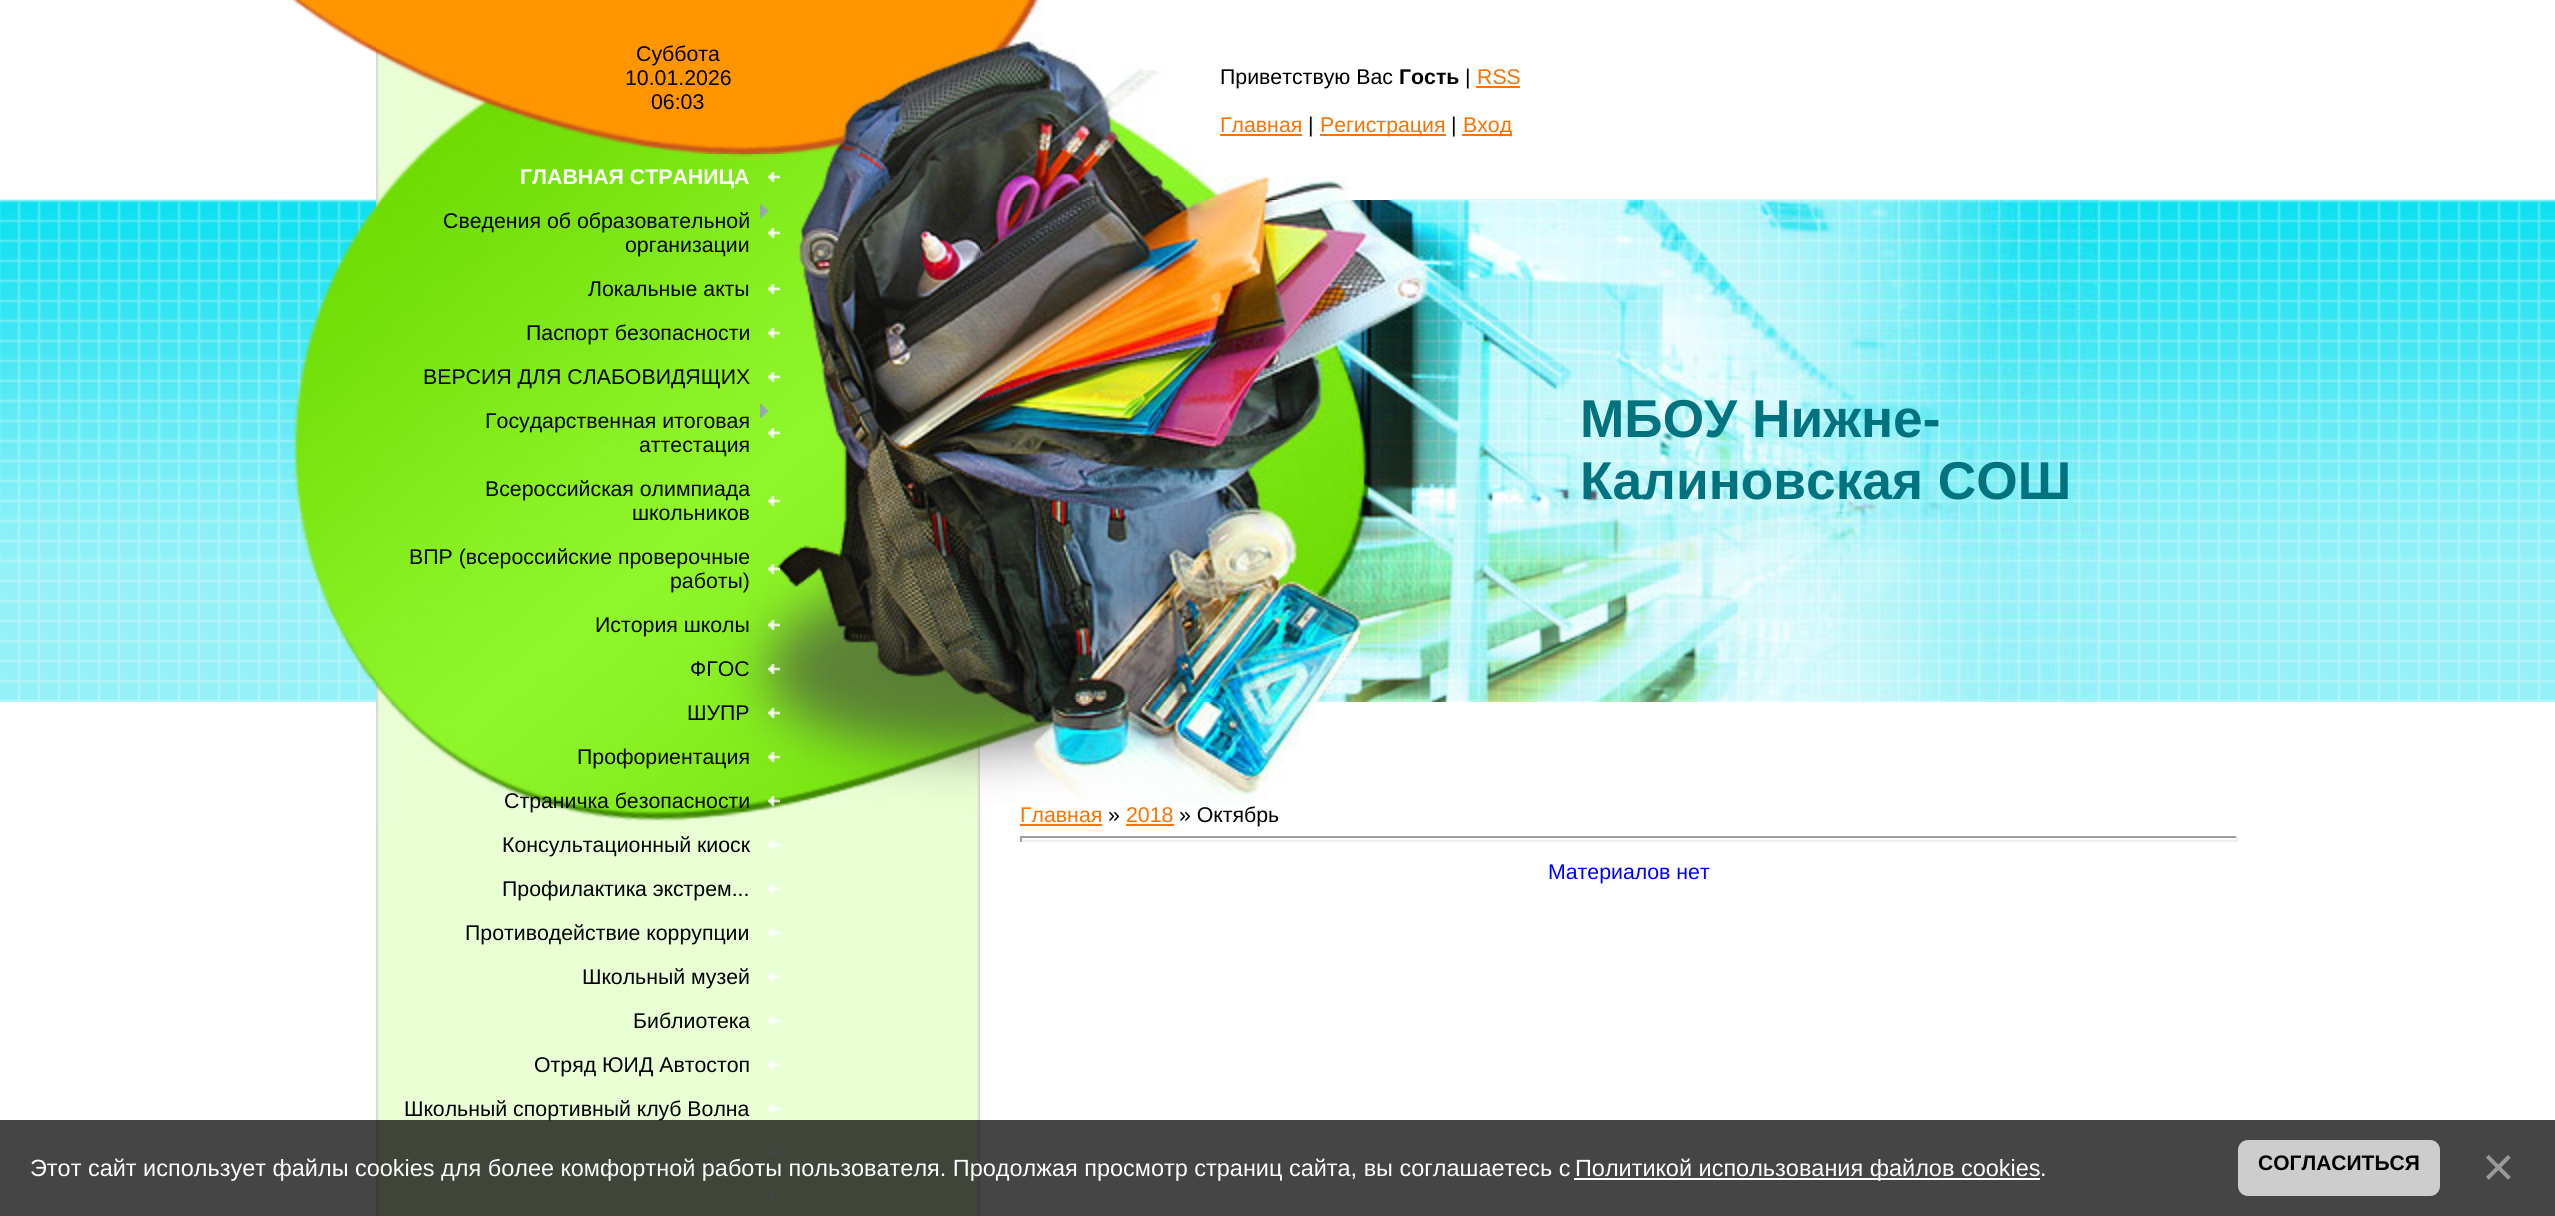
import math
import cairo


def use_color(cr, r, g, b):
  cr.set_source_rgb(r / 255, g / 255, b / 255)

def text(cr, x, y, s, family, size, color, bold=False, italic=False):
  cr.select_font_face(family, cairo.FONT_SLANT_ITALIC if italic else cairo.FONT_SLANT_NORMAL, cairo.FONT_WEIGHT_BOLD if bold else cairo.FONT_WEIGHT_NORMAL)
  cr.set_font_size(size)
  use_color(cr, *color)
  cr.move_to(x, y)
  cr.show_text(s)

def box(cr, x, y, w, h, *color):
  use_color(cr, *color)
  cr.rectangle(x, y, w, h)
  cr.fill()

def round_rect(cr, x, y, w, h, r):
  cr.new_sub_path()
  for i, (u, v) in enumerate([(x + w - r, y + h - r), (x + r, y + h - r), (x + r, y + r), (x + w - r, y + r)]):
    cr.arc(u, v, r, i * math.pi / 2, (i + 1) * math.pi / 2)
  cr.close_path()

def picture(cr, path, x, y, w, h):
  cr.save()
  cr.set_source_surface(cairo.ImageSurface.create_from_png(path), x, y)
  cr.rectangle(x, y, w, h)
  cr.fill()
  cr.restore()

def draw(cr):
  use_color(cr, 255, 255, 255)
  cr.paint()
  picture(cr, "img_01.png", 0, 199, 2555, 503)
  picture(cr, "img_02.png", 278, 0, 98, 700)
  picture(cr, "img_03.png", 376, 826, 604, 390)
  picture(cr, "img_04.png", 376, 0, 604, 154)
  picture(cr, "img_05.png", 376, 154, 604, 672)
  picture(cr, "img_06.png", 768, 172, 12, 10)
  picture(cr, "img_07.png", 768, 228, 12, 10)
  picture(cr, "img_08.png", 760, 204, 8, 14)
  picture(cr, "img_09.png", 768, 284, 12, 10)
  picture(cr, "img_10.png", 768, 328, 12, 10)
  picture(cr, "img_11.png", 768, 372, 12, 10)
  picture(cr, "img_12.png", 768, 428, 12, 10)
  picture(cr, "img_13.png", 760, 404, 8, 14)
  picture(cr, "img_14.png", 768, 496, 12, 10)
  picture(cr, "img_15.png", 768, 564, 12, 10)
  picture(cr, "img_16.png", 768, 620, 12, 10)
  picture(cr, "img_17.png", 768, 664, 12, 10)
  picture(cr, "img_18.png", 768, 708, 12, 10)
  picture(cr, "img_19.png", 768, 752, 12, 10)
  picture(cr, "img_20.png", 768, 796, 12, 10)
  picture(cr, "img_21.png", 768, 840, 12, 10)
  picture(cr, "img_21.png", 768, 884, 12, 10)
  picture(cr, "img_21.png", 768, 928, 12, 10)
  picture(cr, "img_21.png", 768, 972, 12, 10)
  picture(cr, "img_21.png", 768, 1016, 12, 10)
  picture(cr, "img_21.png", 768, 1060, 12, 10)
  picture(cr, "img_21.png", 768, 1104, 12, 10)
  picture(cr, "img_21.png", 768, 1148, 12, 10)
  picture(cr, "img_21.png", 768, 1192, 12, 10)
  picture(cr, "img_22.png", 980, 0, 412, 200)
  box(cr, 1476, 86, 44, 2, 252, 114, 0)
  box(cr, 1220, 134, 82, 2, 252, 114, 0)
  box(cr, 1320, 134, 126, 2, 252, 114, 0)
  box(cr, 1462, 134, 50, 2, 252, 114, 0)
  picture(cr, "img_23.png", 980, 200, 1120, 502)
  picture(cr, "img_24.png", 980, 702, 337, 102)
  box(cr, 1020, 824, 82, 2, 252, 114, 0)
  box(cr, 1126, 824, 48, 2, 252, 114, 0)
  box(cr, 1020, 836, 1218, 2, 159, 159, 159)
  box(cr, 2236, 836, 2, 6, 238, 238, 238)
  box(cr, 1020, 840, 1218, 2, 238, 238, 238)
  box(cr, 1020, 836, 2, 6, 159, 159, 159)
  text(cr, 636, 61, "Суббота", "Liberation Sans", 21.3, (0, 0, 0))
  text(cr, 625, 85, "10.01.2026", "Liberation Sans", 21.3, (0, 0, 0))
  text(cr, 651, 109, "06:03", "Liberation Sans", 21.3, (0, 0, 0))
  text(cr, 520, 184, "ГЛАВНАЯ СТРАНИЦА", "Liberation Sans", 21.3, (255, 255, 255), bold=True)
  text(cr, 443, 228, "Сведения об образовательной", "Liberation Sans", 21.3, (0, 0, 0))
  text(cr, 625, 252, "организации", "Liberation Sans", 21.3, (0, 0, 0))
  text(cr, 588, 296, "Локальные акты", "Liberation Sans", 21.3, (0, 0, 0))
  text(cr, 526, 340, "Паспорт безопасности", "Liberation Sans", 21.3, (0, 0, 0))
  text(cr, 423, 384, "ВЕРСИЯ ДЛЯ СЛАБОВИДЯЩИХ", "Liberation Sans", 21.3, (0, 0, 0))
  text(cr, 485, 428, "Государственная итоговая", "Liberation Sans", 21.3, (0, 0, 0))
  text(cr, 639, 452, "аттестация", "Liberation Sans", 21.3, (0, 0, 0))
  text(cr, 485, 496, "Всероссийская олимпиада", "Liberation Sans", 21.3, (0, 0, 0))
  text(cr, 632, 520, "школьников", "Liberation Sans", 21.3, (0, 0, 0))
  text(cr, 409, 564, "ВПР (всероссийские проверочные", "Liberation Sans", 21.3, (0, 0, 0))
  text(cr, 670, 588, "работы)", "Liberation Sans", 21.3, (0, 0, 0))
  text(cr, 595, 632, "История школы", "Liberation Sans", 21.3, (0, 0, 0))
  text(cr, 690, 676, "ФГОС", "Liberation Sans", 21.3, (0, 0, 0))
  text(cr, 687, 720, "ШУПР", "Liberation Sans", 21.3, (0, 0, 0))
  text(cr, 577, 764, "Профориентация", "Liberation Sans", 21.3, (0, 0, 0))
  text(cr, 504, 808, "Страничка безопасности", "Liberation Sans", 21.3, (0, 0, 0))
  text(cr, 502, 852, "Консультационный киоск", "Liberation Sans", 21.3, (0, 0, 0))
  text(cr, 502, 896, "Профилактика экстрем...", "Liberation Sans", 21.3, (0, 0, 0))
  text(cr, 465, 940, "Противодействие коррупции", "Liberation Sans", 21.3, (0, 0, 0))
  text(cr, 582, 984, "Школьный музей", "Liberation Sans", 21.3, (0, 0, 0))
  text(cr, 633, 1028, "Библиотека", "Liberation Sans", 21.3, (0, 0, 0))
  text(cr, 534, 1072, "Отряд ЮИД Автостоп", "Liberation Sans", 21.3, (0, 0, 0))
  text(cr, 404, 1116, "Школьный спортивный клуб Волна", "Liberation Sans", 21.3, (0, 0, 0))
  text(cr, 1220, 84, "Приветствую Вас", "Liberation Sans", 21.3, (0, 0, 0))
  text(cr, 1399, 84, "Гость", "Liberation Sans", 21.3, (0, 0, 0), bold=True)
  text(cr, 1465, 84, "|", "Liberation Sans", 21.3, (0, 0, 0))
  text(cr, 1477, 84, "RSS", "Liberation Sans", 21.3, (252, 114, 0))
  text(cr, 1220, 132, "Главная", "Liberation Sans", 21.3, (252, 114, 0))
  text(cr, 1308, 132, "|", "Liberation Sans", 21.3, (0, 0, 0))
  text(cr, 1320, 132, "Регистрация", "Liberation Sans", 21.3, (252, 114, 0))
  text(cr, 1451, 132, "|", "Liberation Sans", 21.3, (0, 0, 0))
  text(cr, 1463, 132, "Вход", "Liberation Sans", 21.3, (252, 114, 0))
  text(cr, 1580, 437, "МБОУ Нижне-", "Liberation Sans", 53.25, (0, 115, 126), bold=True)
  text(cr, 1580, 499, "Калиновская СОШ", "Liberation Sans", 53.25, (0, 115, 126), bold=True)
  text(cr, 1020, 822, "Главная", "Liberation Sans", 21.3, (252, 114, 0))
  text(cr, 1108, 822, "»", "Liberation Sans", 21.3, (0, 0, 0))
  text(cr, 1126, 822, "2018", "Liberation Sans", 21.3, (252, 114, 0))
  text(cr, 1179, 822, "» Октябрь", "Liberation Sans", 21.3, (0, 0, 0))
  text(cr, 1548, 879, "Материалов нет", "Liberation Sans", 21.3, (0, 0, 255))
  cr.set_source_rgba(0, 0, 0, 0.73)
  cr.rectangle(0, 1120, 2555, 96)
  cr.fill()
  text(cr, 30, 1176, "Этот сайт использует файлы cookies для более комфортной работы пользователя. Продолжая просмотр страниц сайта, вы соглашаетесь с", "Liberation Sans", 23.47, (255, 255, 255))
  box(cr, 1574, 1178, 466, 2, 255, 255, 255)
  text(cr, 1575, 1176, "Политикой использования файлов cookies", "Liberation Sans", 23.47, (255, 255, 255))
  text(cr, 2040, 1176, ".", "Liberation Sans", 23.47, (255, 255, 255))
  use_color(cr, 205, 205, 205)
  round_rect(cr, 2238, 1140, 202, 56, 10)
  cr.fill()
  text(cr, 2258, 1170, "СОГЛАСИТЬСЯ", "Liberation Sans", 21, (0, 0, 0), bold=True)
  text(cr, 2482, 1186, "×", "Liberation Sans", 56, (153, 153, 153))


surface = cairo.ImageSurface(cairo.FORMAT_RGB24, 2555, 1216)
cr = cairo.Context(surface)
options = cairo.FontOptions()
options.set_hint_metrics(cairo.HINT_METRICS_OFF)
options.set_hint_style(cairo.HINT_STYLE_NONE)
cr.set_font_options(options)
cr.set_miter_limit(4)
draw(cr)
surface.write_to_png("out.png")
